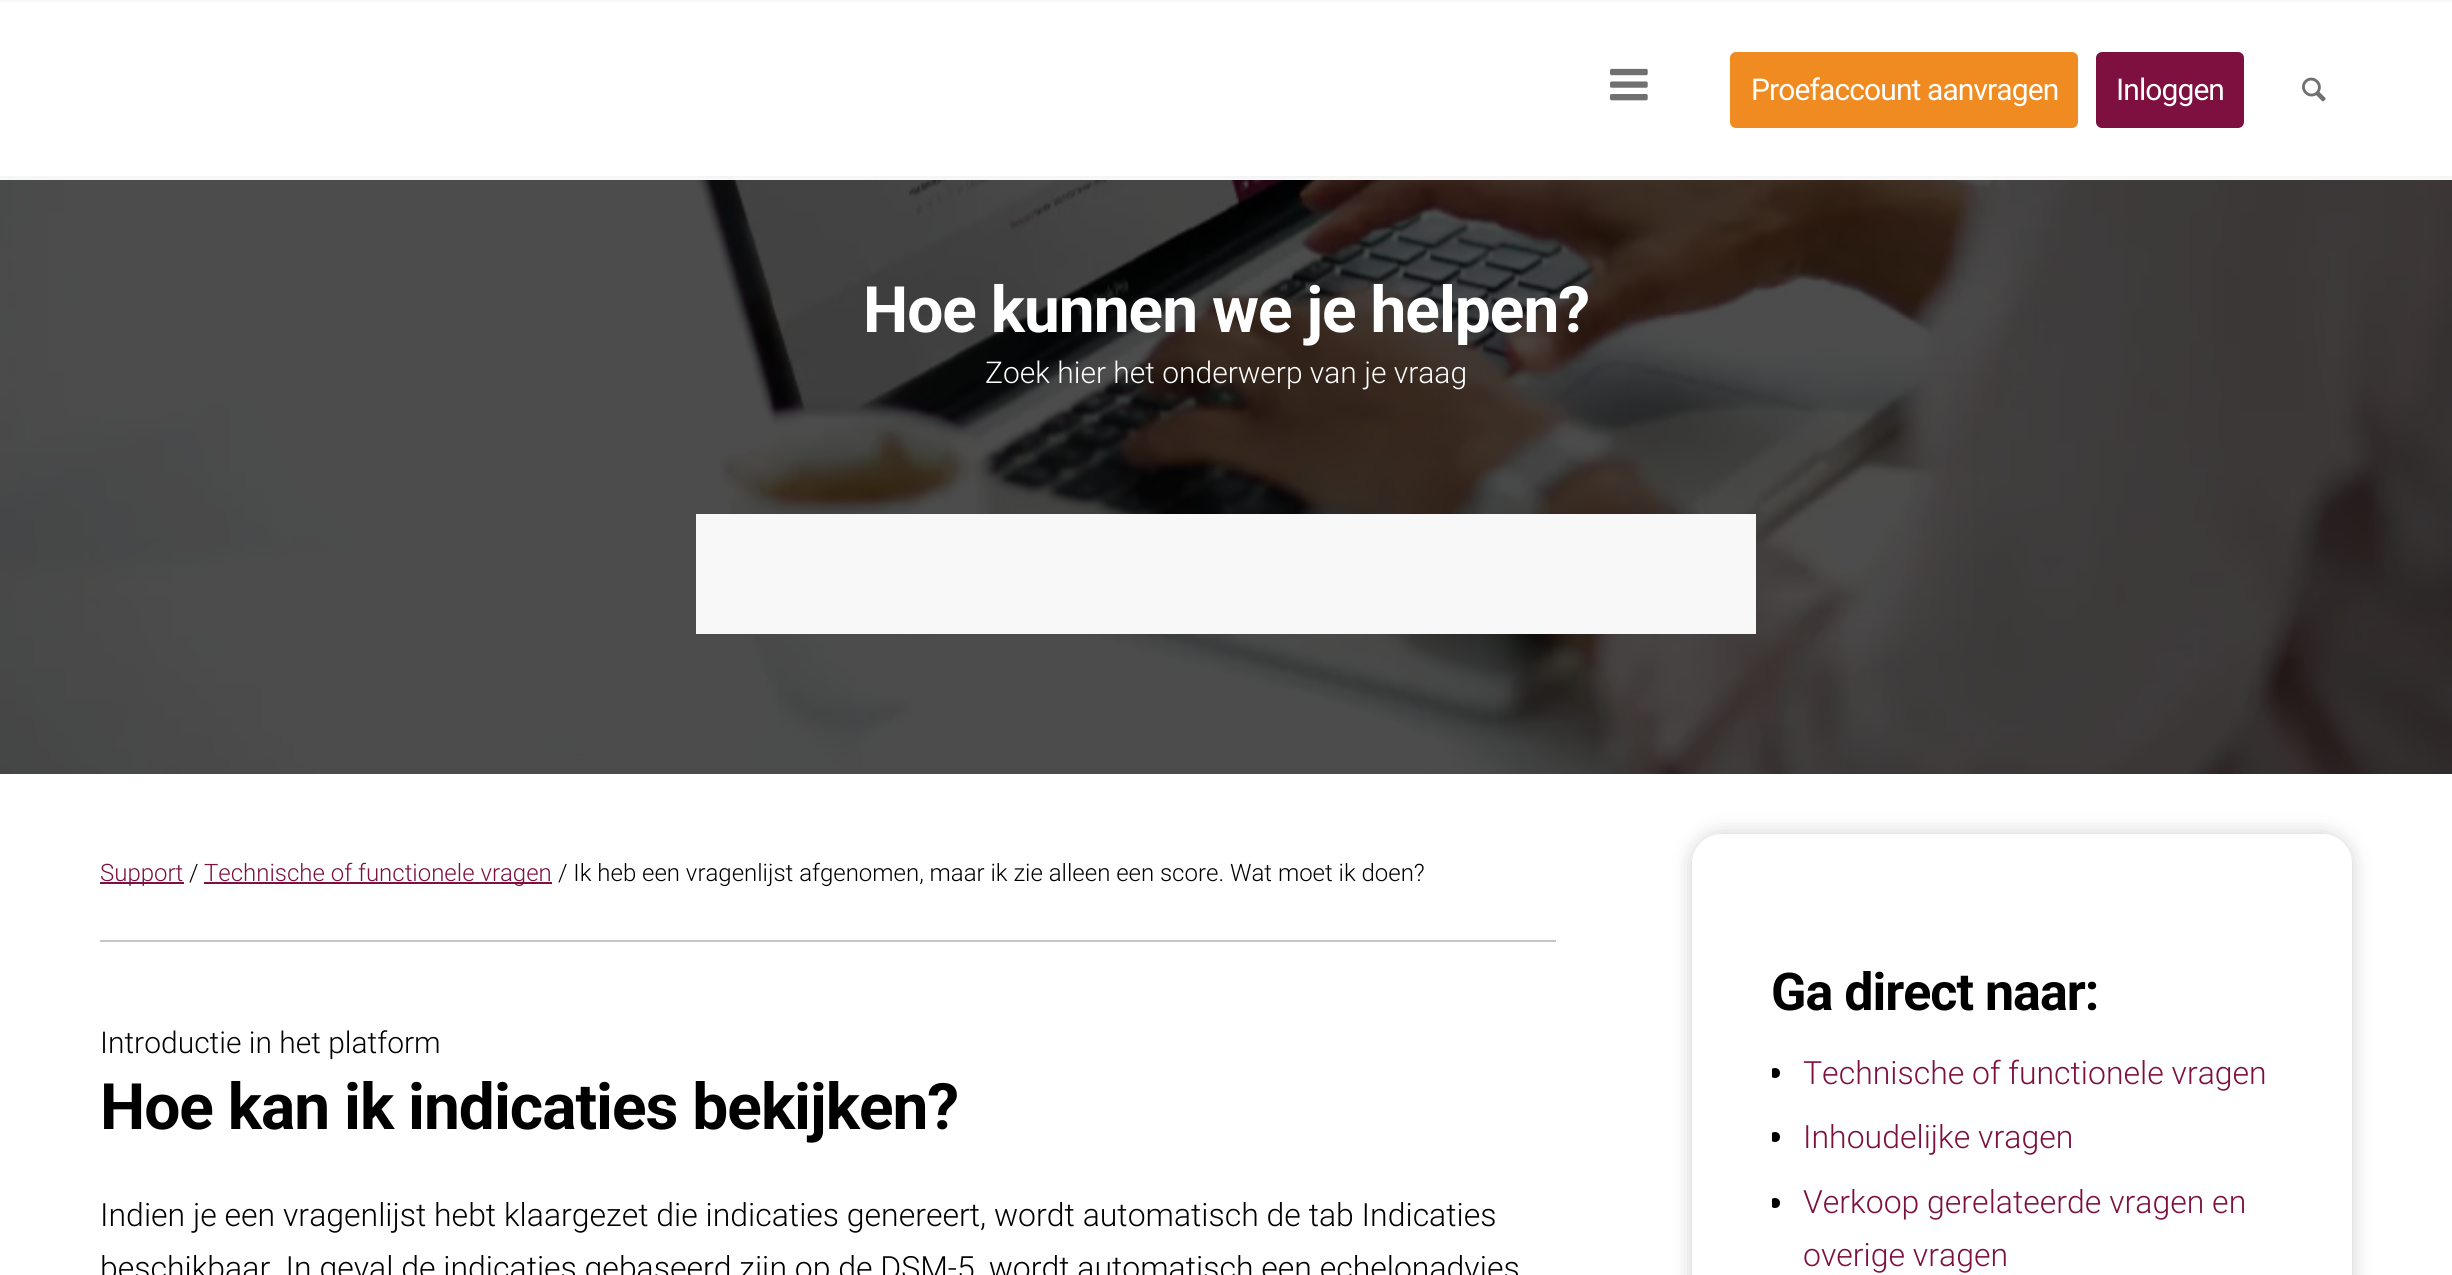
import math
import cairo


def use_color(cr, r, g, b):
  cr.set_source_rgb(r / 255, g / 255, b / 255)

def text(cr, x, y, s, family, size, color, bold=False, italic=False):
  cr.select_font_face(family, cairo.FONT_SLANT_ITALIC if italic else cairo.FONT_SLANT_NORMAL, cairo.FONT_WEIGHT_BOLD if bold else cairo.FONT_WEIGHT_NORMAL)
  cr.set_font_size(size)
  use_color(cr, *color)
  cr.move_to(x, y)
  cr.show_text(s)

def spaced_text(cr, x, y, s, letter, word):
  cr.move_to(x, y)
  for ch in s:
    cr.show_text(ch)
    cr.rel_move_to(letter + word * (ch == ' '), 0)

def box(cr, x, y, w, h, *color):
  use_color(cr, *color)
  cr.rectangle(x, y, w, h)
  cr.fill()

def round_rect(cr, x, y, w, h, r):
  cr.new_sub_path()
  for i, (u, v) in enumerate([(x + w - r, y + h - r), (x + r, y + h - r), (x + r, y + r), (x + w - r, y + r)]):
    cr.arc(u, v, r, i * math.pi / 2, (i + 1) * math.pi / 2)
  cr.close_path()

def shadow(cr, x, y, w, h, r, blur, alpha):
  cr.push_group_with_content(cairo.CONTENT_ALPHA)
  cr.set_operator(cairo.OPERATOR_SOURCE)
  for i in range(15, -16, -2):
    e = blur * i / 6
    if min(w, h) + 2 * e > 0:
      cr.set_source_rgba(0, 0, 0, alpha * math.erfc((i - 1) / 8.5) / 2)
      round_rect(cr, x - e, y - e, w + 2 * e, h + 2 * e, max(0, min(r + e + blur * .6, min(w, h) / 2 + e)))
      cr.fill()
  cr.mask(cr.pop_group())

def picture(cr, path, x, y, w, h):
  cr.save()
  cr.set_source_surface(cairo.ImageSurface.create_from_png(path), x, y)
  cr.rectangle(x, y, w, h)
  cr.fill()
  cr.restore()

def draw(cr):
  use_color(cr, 255, 255, 255)
  cr.paint()
  box(cr, 0, 0, 2452, 2, 248, 248, 248)
  picture(cr, "img_03.png", 0, 176, 2452, 598)
  box(cr, 0, 178, 2452, 2, 248, 248, 248)
  picture(cr, "img_01.png", 1610, 68, 38, 33)
  use_color(cr, 239, 139, 32)
  round_rect(cr, 1730, 52, 348, 76, 6)
  cr.fill()
  use_color(cr, 125, 16, 63)
  round_rect(cr, 2096, 52, 148, 76, 6)
  cr.fill()
  picture(cr, "img_02.png", 2302, 77, 24, 25)
  cr.set_source_rgba(1, 1, 1, 0.95)
  cr.rectangle(0, 176, 2452, 2)
  cr.fill()
  box(cr, 696, 514, 1060, 120, 248, 248, 248)
  box(cr, 100, 882, 84, 2, 125, 16, 63)
  box(cr, 204, 882, 348, 2, 125, 16, 63)
  box(cr, 100, 940, 1456, 2, 197, 197, 197)
  cr.save()
  cr.set_fill_rule(cairo.FILL_RULE_EVEN_ODD)
  cr.new_path()
  cr.move_to(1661, 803)
  cr.line_to(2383, 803)
  cr.line_to(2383, 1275)
  cr.line_to(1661, 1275)
  cr.close_path()
  cr.move_to(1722, 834)
  cr.line_to(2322, 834)
  cr.curve_to(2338.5, 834, 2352, 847.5, 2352, 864)
  cr.line_to(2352, 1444)
  cr.curve_to(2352, 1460.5, 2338.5, 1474, 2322, 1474)
  cr.line_to(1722, 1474)
  cr.curve_to(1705.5, 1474, 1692, 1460.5, 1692, 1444)
  cr.line_to(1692, 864)
  cr.curve_to(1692, 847.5, 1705.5, 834, 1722, 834)
  cr.close_path()
  cr.clip()
  use_color(cr, 10, 10, 10)
  shadow(cr, 1692, 834, 660, 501, 30, 10, 0.21)
  cr.restore()
  cr.save()
  cr.rectangle(1772, 1042, 500, 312)
  cr.clip()
  use_color(cr, 0, 0, 0)
  cr.arc(1775, 1073, 5, 0, 2 * math.pi)
  cr.fill()
  cr.arc(1775, 1137, 5, 0, 2 * math.pi)
  cr.fill()
  cr.arc(1775, 1203, 5, 0, 2 * math.pi)
  cr.fill()
  cr.restore()
  cr.select_font_face("Roboto")
  cr.set_font_size(30)
  use_color(cr, 255, 255, 255)
  spaced_text(cr, 1751, 100, "Proefaccount aanvragen", -0.9, 0)
  spaced_text(cr, 2116, 100, "Inloggen", -0.9, 0)
  cr.select_font_face("Roboto", cairo.FONT_SLANT_NORMAL, cairo.FONT_WEIGHT_BOLD)
  cr.set_font_size(64)
  spaced_text(cr, 863, 332, "Hoe kunnen we je helpen?", -1, 0)
  text(cr, 985, 383, "Zoek hier het onderwerp van je vraag", "Roboto Light", 30, (255, 255, 255))
  text(cr, 100, 881, "Support", "Roboto Light", 24, (125, 16, 63))
  text(cr, 189, 881, "/", "Roboto Light", 24, (0, 0, 0))
  text(cr, 204, 881, "Technische of functionele vragen", "Roboto Light", 24, (125, 16, 63))
  text(cr, 558, 881, "/ Ik heb een vragenlijst afgenomen, maar ik zie alleen een score. Wat moet ik doen?", "Roboto Light", 24, (0, 0, 0))
  text(cr, 100, 1053, "Introductie in het platform", "Roboto Light", 30, (0, 0, 0))
  cr.select_font_face("Roboto", cairo.FONT_SLANT_NORMAL, cairo.FONT_WEIGHT_BOLD)
  cr.set_font_size(64)
  spaced_text(cr, 100, 1129, "Hoe kan ik indicaties bekijken?", -1, 0)
  text(cr, 100, 1226, "Indien je een vragenlijst hebt klaargezet die indicaties genereert, wordt automatisch de tab Indicaties", "Roboto Light", 32, (0, 0, 0))
  text(cr, 100, 1279, "beschikbaar. In geval de indicaties gebaseerd zijn op de DSM-5, wordt automatisch een echelonadvies", "Roboto Light", 32, (0, 0, 0))
  cr.select_font_face("Roboto", cairo.FONT_SLANT_NORMAL, cairo.FONT_WEIGHT_BOLD)
  cr.set_font_size(52)
  spaced_text(cr, 1771, 1010, "Ga direct naar:", -1, 0)
  text(cr, 1803, 1084, "Technische of functionele vragen", "Roboto Light", 32, (125, 16, 63))
  text(cr, 1803, 1148, "Inhoudelijke vragen", "Roboto Light", 32, (125, 16, 63))
  text(cr, 1803, 1213, "Verkoop gerelateerde vragen en", "Roboto Light", 32, (125, 16, 63))
  text(cr, 1803, 1266, "overige vragen", "Roboto Light", 32, (125, 16, 63))


surface = cairo.ImageSurface(cairo.FORMAT_RGB24, 2452, 1275)
cr = cairo.Context(surface)
options = cairo.FontOptions()
options.set_hint_metrics(cairo.HINT_METRICS_OFF)
options.set_hint_style(cairo.HINT_STYLE_NONE)
cr.set_font_options(options)
cr.set_miter_limit(4)
draw(cr)
surface.write_to_png("out.png")
